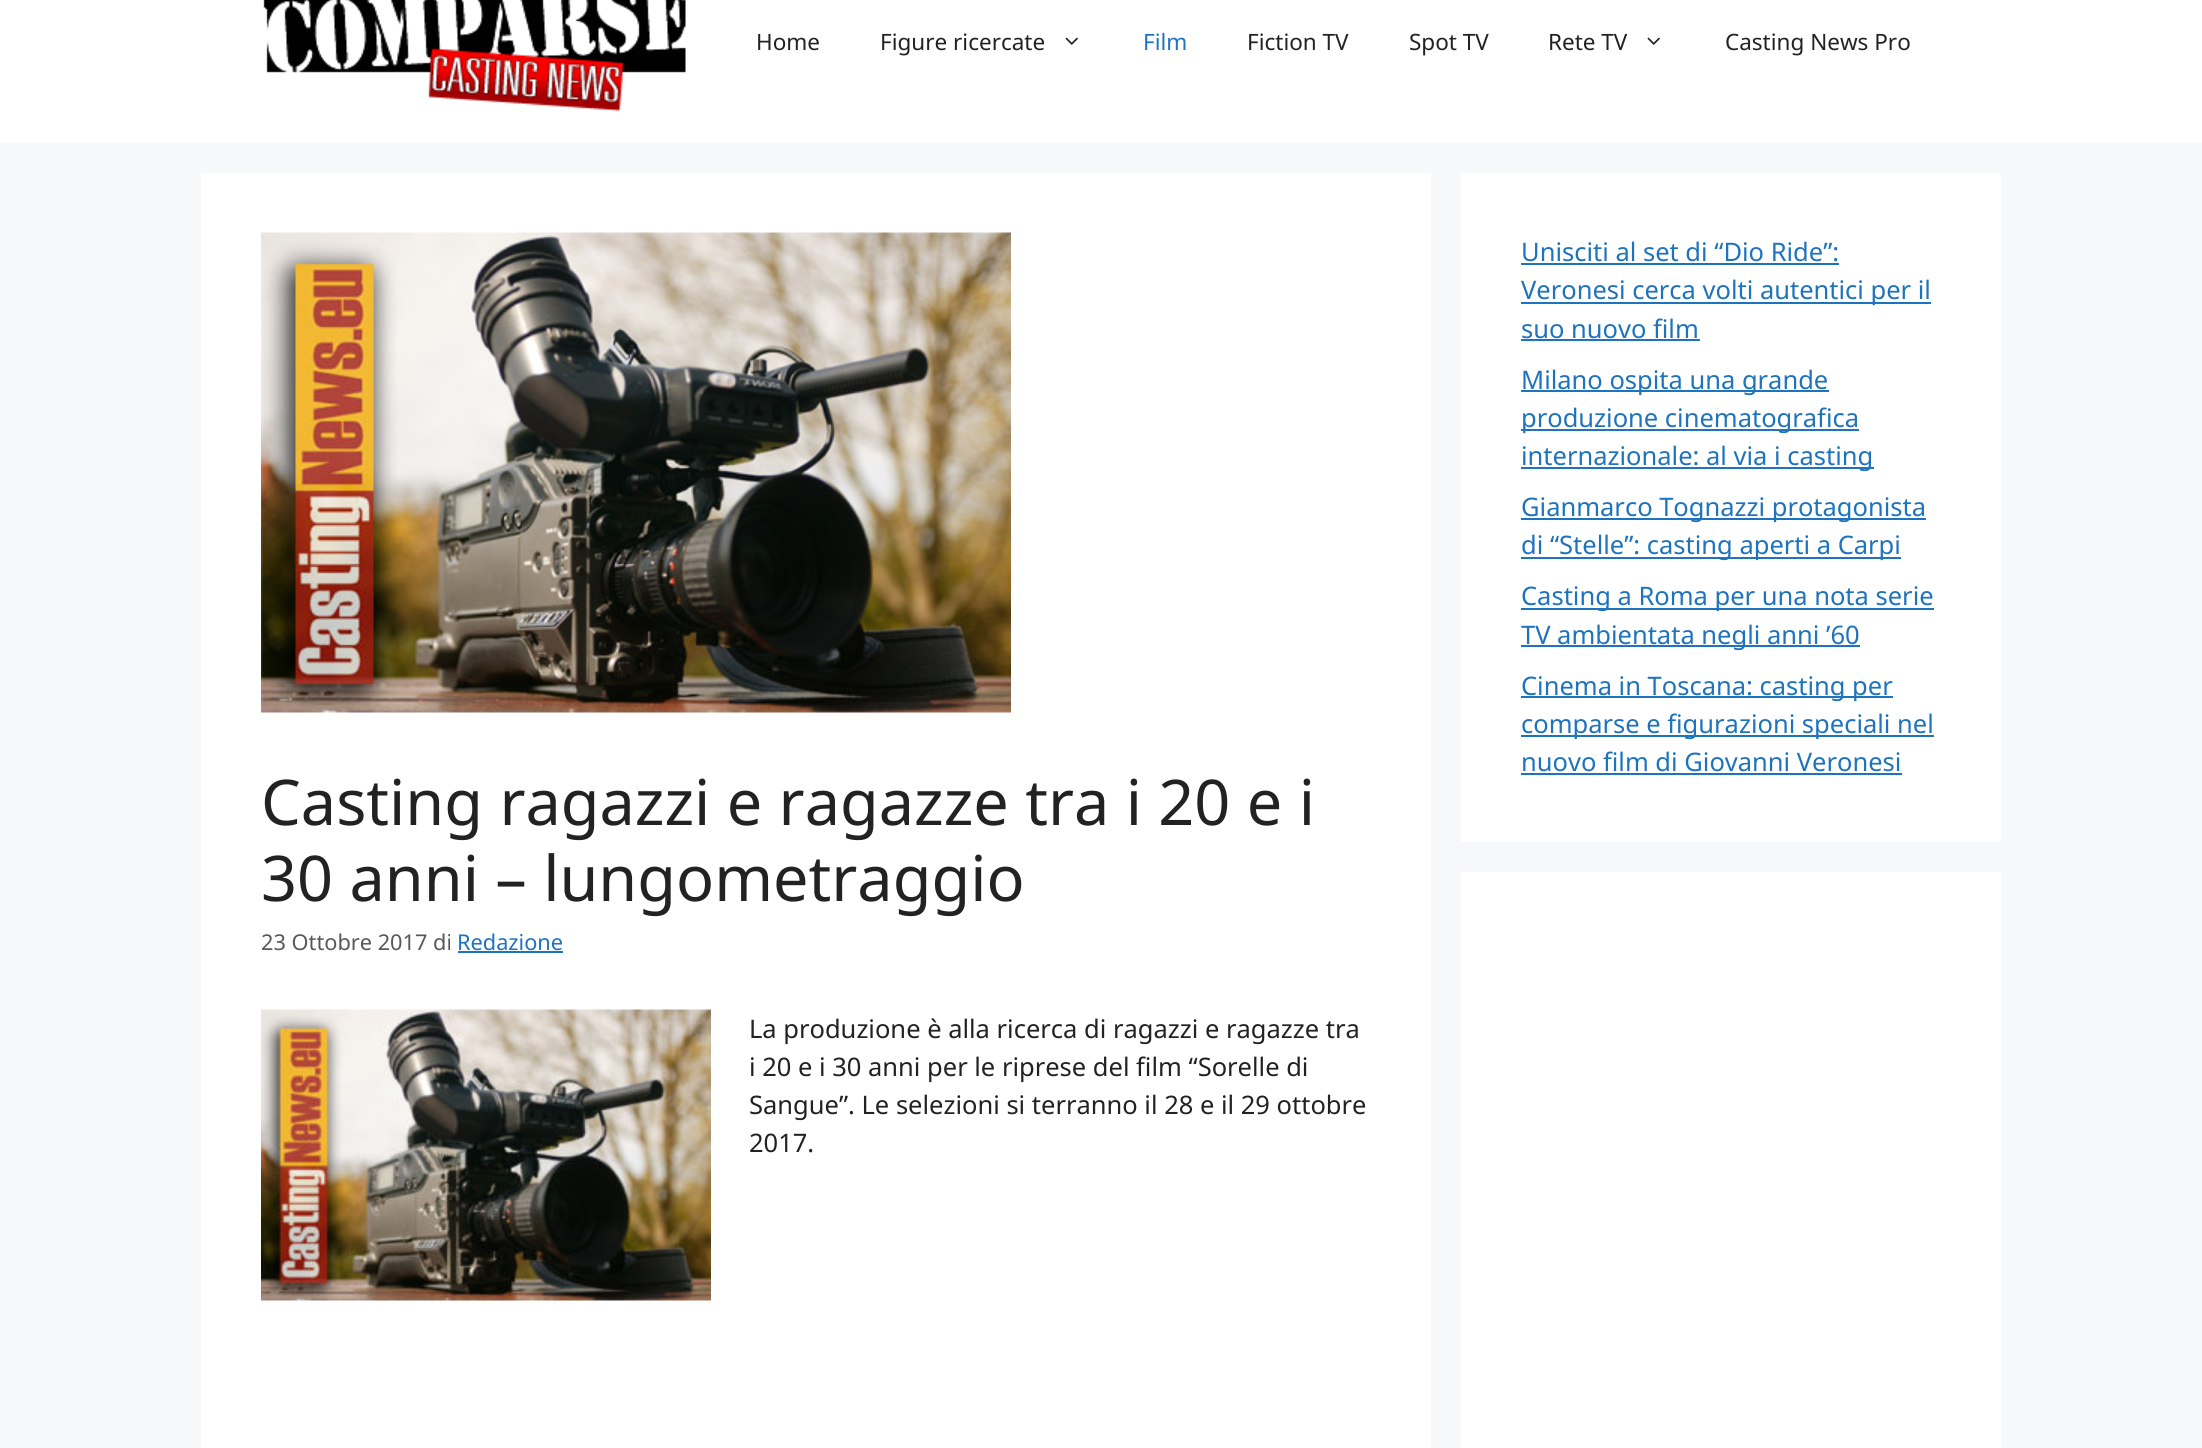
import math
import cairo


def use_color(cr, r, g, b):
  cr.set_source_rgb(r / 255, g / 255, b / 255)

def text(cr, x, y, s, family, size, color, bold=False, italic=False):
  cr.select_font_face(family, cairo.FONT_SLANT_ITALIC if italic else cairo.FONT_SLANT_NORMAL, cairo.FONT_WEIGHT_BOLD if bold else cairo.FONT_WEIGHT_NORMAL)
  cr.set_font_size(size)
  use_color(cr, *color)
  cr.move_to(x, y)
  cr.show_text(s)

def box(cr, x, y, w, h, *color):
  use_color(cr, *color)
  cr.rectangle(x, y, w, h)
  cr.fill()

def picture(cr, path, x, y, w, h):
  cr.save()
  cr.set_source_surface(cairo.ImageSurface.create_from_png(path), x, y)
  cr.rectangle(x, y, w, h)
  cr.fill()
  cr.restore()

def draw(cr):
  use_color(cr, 247, 248, 249)
  cr.paint()
  box(cr, 0, 0, 2202, 143, 255, 255, 255)
  picture(cr, "img_01.png", 263, 0, 423, 112)
  picture(cr, "img_02.png", 1065, 37, 13, 8)
  picture(cr, "img_02.png", 1647, 37, 13, 8)
  box(cr, 1461, 173, 540, 669, 255, 255, 255)
  box(cr, 1521, 263, 318, 2, 30, 115, 190)
  box(cr, 1521, 302, 410, 2, 30, 115, 190)
  box(cr, 1521, 339, 179, 2, 30, 115, 190)
  box(cr, 1521, 390, 308, 2, 30, 115, 190)
  box(cr, 1521, 429, 338, 2, 30, 115, 190)
  box(cr, 1521, 467, 353, 2, 30, 115, 190)
  box(cr, 1521, 518, 405, 2, 30, 115, 190)
  box(cr, 1521, 557, 380, 2, 30, 115, 190)
  box(cr, 1521, 608, 413, 2, 30, 115, 190)
  box(cr, 1521, 645, 339, 2, 30, 115, 190)
  box(cr, 1521, 696, 372, 2, 30, 115, 190)
  box(cr, 1521, 735, 413, 2, 30, 115, 190)
  box(cr, 1521, 773, 381, 2, 30, 115, 190)
  box(cr, 1461, 872, 540, 576, 255, 255, 255)
  box(cr, 201, 173, 1230, 1275, 255, 255, 255)
  picture(cr, "img_03.png", 261, 232, 750, 481)
  box(cr, 458, 951, 105, 2, 30, 115, 190)
  picture(cr, "img_04.png", 261, 1009, 450, 292)
  text(cr, 756, 50, "Home", "Noto Sans", 22.5, (34, 34, 34))
  text(cr, 880, 50, "Figure ricercate", "Noto Sans", 22.5, (34, 34, 34))
  text(cr, 1143, 50, "Film", "Noto Sans", 22.5, (30, 115, 190))
  text(cr, 1247, 50, "Fiction TV", "Noto Sans", 22.5, (34, 34, 34))
  text(cr, 1409, 50, "Spot TV", "Noto Sans", 22.5, (34, 34, 34))
  text(cr, 1548, 50, "Rete TV", "Noto Sans", 22.5, (34, 34, 34))
  text(cr, 1725, 50, "Casting News Pro", "Noto Sans", 22.5, (34, 34, 34))
  text(cr, 1521, 261, "Unisciti al set di “Dio Ride”:", "Noto Sans", 25.5, (30, 115, 190))
  text(cr, 1521, 299, "Veronesi cerca volti autentici per il", "Noto Sans", 25.5, (30, 115, 190))
  text(cr, 1521, 338, "suo nuovo film", "Noto Sans", 25.5, (30, 115, 190))
  text(cr, 1521, 389, "Milano ospita una grande", "Noto Sans", 25.5, (30, 115, 190))
  text(cr, 1521, 427, "produzione cinematografica", "Noto Sans", 25.5, (30, 115, 190))
  text(cr, 1521, 465, "internazionale: al via i casting", "Noto Sans", 25.5, (30, 115, 190))
  text(cr, 1521, 516, "Gianmarco Tognazzi protagonista", "Noto Sans", 25.5, (30, 115, 190))
  text(cr, 1521, 554, "di “Stelle”: casting aperti a Carpi", "Noto Sans", 25.5, (30, 115, 190))
  text(cr, 1521, 605, "Casting a Roma per una nota serie", "Noto Sans", 25.5, (30, 115, 190))
  text(cr, 1521, 644, "TV ambientata negli anni ’60", "Noto Sans", 25.5, (30, 115, 190))
  text(cr, 1521, 695, "Cinema in Toscana: casting per", "Noto Sans", 25.5, (30, 115, 190))
  text(cr, 1521, 733, "comparse e figurazioni speciali nel", "Noto Sans", 25.5, (30, 115, 190))
  text(cr, 1521, 771, "nuovo film di Giovanni Veronesi", "Noto Sans", 25.5, (30, 115, 190))
  text(cr, 261, 825, "Casting ragazzi e ragazze tra i 20 e i", "Noto Sans", 63, (34, 34, 34))
  text(cr, 261, 901, "30 anni – lungometraggio", "Noto Sans", 63, (34, 34, 34))
  text(cr, 261, 950, "23 Ottobre 2017 di", "Noto Sans", 21.75, (87, 87, 96))
  text(cr, 457, 950, "Redazione", "Noto Sans", 21.75, (30, 115, 190))
  text(cr, 749, 1038, "La produzione è alla ricerca di ragazzi e ragazze tra", "Noto Sans", 25.5, (34, 34, 34))
  text(cr, 749, 1076, "i 20 e i 30 anni per le riprese del film “Sorelle di", "Noto Sans", 25.5, (34, 34, 34))
  text(cr, 749, 1114, "Sangue”. Le selezioni si terranno il 28 e il 29 ottobre", "Noto Sans", 25.5, (34, 34, 34))
  text(cr, 749, 1152, "2017.", "Noto Sans", 25.5, (34, 34, 34))


surface = cairo.ImageSurface(cairo.FORMAT_RGB24, 2202, 1448)
cr = cairo.Context(surface)
options = cairo.FontOptions()
options.set_hint_metrics(cairo.HINT_METRICS_OFF)
options.set_hint_style(cairo.HINT_STYLE_NONE)
cr.set_font_options(options)
cr.set_miter_limit(4)
draw(cr)
surface.write_to_png("out.png")
